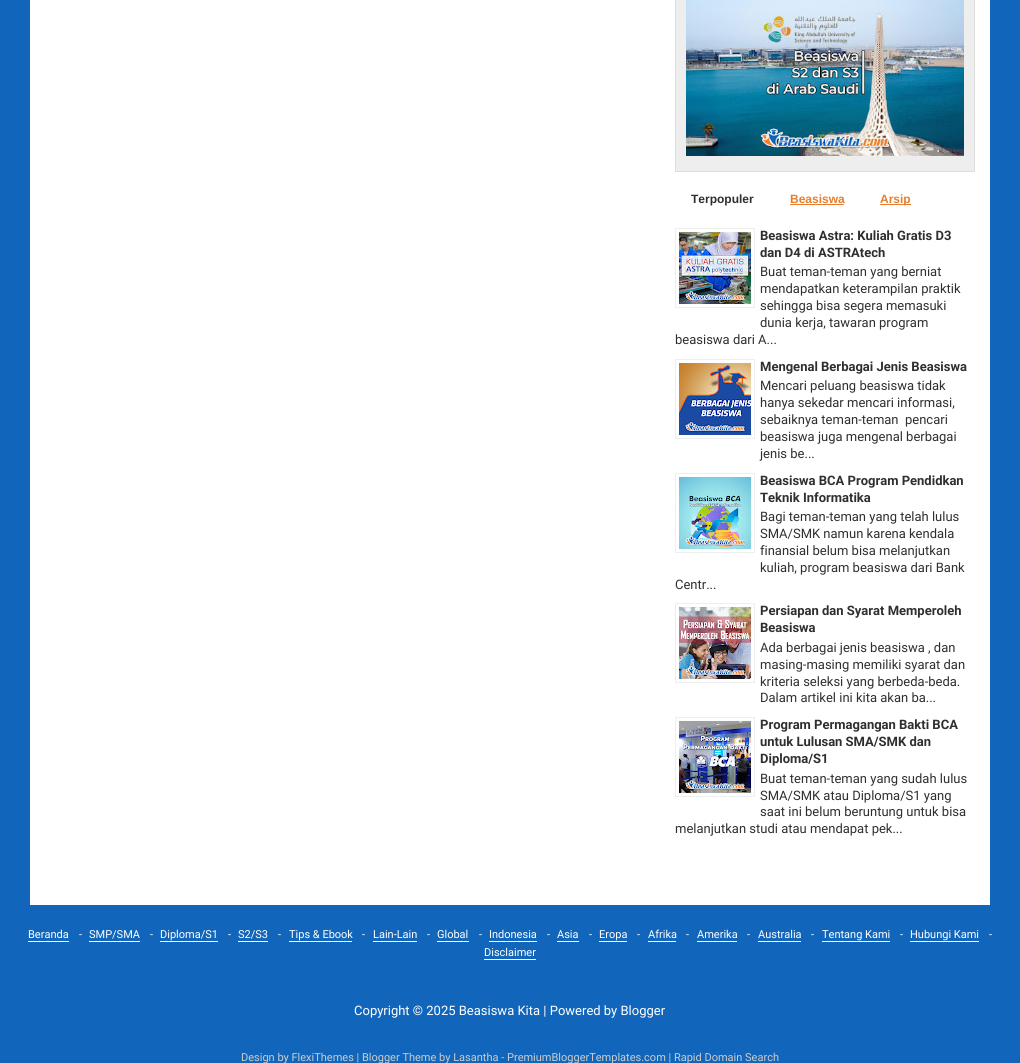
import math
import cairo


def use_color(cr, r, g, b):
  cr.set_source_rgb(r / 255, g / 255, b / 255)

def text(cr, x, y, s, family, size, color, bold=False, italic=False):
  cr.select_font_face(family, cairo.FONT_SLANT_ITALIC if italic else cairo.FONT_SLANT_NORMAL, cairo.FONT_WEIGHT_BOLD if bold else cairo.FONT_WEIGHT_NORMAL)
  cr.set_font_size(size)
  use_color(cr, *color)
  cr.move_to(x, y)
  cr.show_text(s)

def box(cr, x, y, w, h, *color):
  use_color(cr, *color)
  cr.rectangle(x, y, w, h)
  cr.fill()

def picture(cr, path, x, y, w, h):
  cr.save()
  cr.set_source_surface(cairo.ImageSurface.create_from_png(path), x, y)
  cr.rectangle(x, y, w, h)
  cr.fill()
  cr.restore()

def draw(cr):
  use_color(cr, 17, 102, 187)
  cr.paint()
  box(cr, 30, 0, 960, 905, 255, 255, 255)
  use_color(cr, 238, 238, 238)
  cr.rectangle(675.5, -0.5, 299, 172)
  cr.fill_preserve()
  use_color(cr, 221, 221, 221)
  cr.set_line_width(1)
  cr.stroke()
  picture(cr, "img_01.png", 686, 0, 278, 156)
  box(cr, 790, 204, 54, 1, 230, 126, 46)
  box(cr, 880, 204, 31, 1, 230, 126, 46)
  cr.rectangle(675.5, 228.5, 79, 79)
  use_color(cr, 238, 238, 238)
  cr.stroke()
  picture(cr, "img_02.png", 679, 232, 72, 72)
  cr.rectangle(675.5, 359.5, 79, 79)
  cr.stroke()
  picture(cr, "img_03.png", 679, 363, 72, 72)
  cr.rectangle(675.5, 473.5, 79, 79)
  cr.stroke()
  picture(cr, "img_04.png", 679, 477, 72, 72)
  cr.rectangle(675.5, 603.5, 79, 79)
  cr.stroke()
  picture(cr, "img_05.png", 679, 607, 72, 72)
  cr.rectangle(675.5, 717.5, 79, 79)
  cr.stroke()
  picture(cr, "img_06.png", 679, 721, 72, 72)
  box(cr, 28, 941, 41, 1, 255, 255, 255)
  box(cr, 89, 941, 51, 1, 255, 255, 255)
  box(cr, 160, 941, 58, 1, 255, 255, 255)
  box(cr, 238, 941, 30, 1, 255, 255, 255)
  box(cr, 289, 941, 63, 1, 255, 255, 255)
  box(cr, 373, 941, 44, 1, 255, 255, 255)
  box(cr, 437, 941, 32, 1, 255, 255, 255)
  box(cr, 489, 941, 48, 1, 255, 255, 255)
  box(cr, 557, 941, 22, 1, 255, 255, 255)
  box(cr, 599, 941, 28, 1, 255, 255, 255)
  box(cr, 648, 941, 28, 1, 255, 255, 255)
  box(cr, 697, 941, 40, 1, 255, 255, 255)
  box(cr, 758, 941, 43, 1, 255, 255, 255)
  box(cr, 822, 941, 68, 1, 255, 255, 255)
  box(cr, 910, 941, 69, 1, 255, 255, 255)
  box(cr, 484, 959, 52, 1, 255, 255, 255)
  text(cr, 691, 203, "Terpopuler", "Liberation Sans", 12, (47, 47, 47), bold=True)
  text(cr, 790, 203, "Beasiswa", "Liberation Sans", 12, (230, 126, 46), bold=True)
  text(cr, 880, 203, "Arsip", "Liberation Sans", 12, (230, 126, 46), bold=True)
  text(cr, 760, 240, "Beasiswa Astra: Kuliah Gratis D3", "Roboto", 13, (47, 47, 47), bold=True)
  text(cr, 760, 257, "dan D4 di ASTRAtech", "Roboto", 13, (47, 47, 47), bold=True)
  text(cr, 760, 276, "Buat teman-teman yang berniat", "Roboto", 13, (47, 47, 47))
  text(cr, 760, 293, "mendapatkan keterampilan praktik", "Roboto", 13, (47, 47, 47))
  text(cr, 760, 310, "sehingga bisa segera memasuki", "Roboto", 13, (47, 47, 47))
  text(cr, 760, 327, "dunia kerja, tawaran program", "Roboto", 13, (47, 47, 47))
  text(cr, 675, 344, "beasiswa dari A...", "Roboto", 13, (47, 47, 47))
  text(cr, 760, 371, "Mengenal Berbagai Jenis Beasiswa", "Roboto", 13, (47, 47, 47), bold=True)
  text(cr, 760, 390, "Mencari peluang beasiswa tidak", "Roboto", 13, (47, 47, 47))
  text(cr, 760, 407, "hanya sekedar mencari informasi,", "Roboto", 13, (47, 47, 47))
  text(cr, 760, 424, "sebaiknya teman-teman  pencari", "Roboto", 13, (47, 47, 47))
  text(cr, 760, 441, "beasiswa juga mengenal berbagai", "Roboto", 13, (47, 47, 47))
  text(cr, 760, 458, "jenis be...", "Roboto", 13, (47, 47, 47))
  text(cr, 760, 485, "Beasiswa BCA Program Pendidkan", "Roboto", 13, (47, 47, 47), bold=True)
  text(cr, 760, 502, "Teknik Informatika", "Roboto", 13, (47, 47, 47), bold=True)
  text(cr, 760, 521, "Bagi teman-teman yang telah lulus", "Roboto", 13, (47, 47, 47))
  text(cr, 760, 538, "SMA/SMK namun karena kendala", "Roboto", 13, (47, 47, 47))
  text(cr, 760, 555, "finansial belum bisa melanjutkan", "Roboto", 13, (47, 47, 47))
  text(cr, 760, 572, "kuliah, program beasiswa dari Bank", "Roboto", 13, (47, 47, 47))
  text(cr, 675, 589, "Centr...", "Roboto", 13, (47, 47, 47))
  text(cr, 760, 615, "Persiapan dan Syarat Memperoleh", "Roboto", 13, (47, 47, 47), bold=True)
  text(cr, 760, 632, "Beasiswa", "Roboto", 13, (47, 47, 47), bold=True)
  text(cr, 760, 652, "Ada berbagai jenis beasiswa , dan", "Roboto", 13, (47, 47, 47))
  text(cr, 760, 669, "masing-masing memiliki syarat dan", "Roboto", 13, (47, 47, 47))
  text(cr, 760, 686, "kriteria seleksi yang berbeda-beda.", "Roboto", 13, (47, 47, 47))
  text(cr, 760, 702, "Dalam artikel ini kita akan ba...", "Roboto", 13, (47, 47, 47))
  text(cr, 760, 729, "Program Permagangan Bakti BCA", "Roboto", 13, (47, 47, 47), bold=True)
  text(cr, 760, 746, "untuk Lulusan SMA/SMK dan", "Roboto", 13, (47, 47, 47), bold=True)
  text(cr, 760, 763, "Diploma/S1", "Roboto", 13, (47, 47, 47), bold=True)
  text(cr, 760, 783, "Buat teman-teman yang sudah lulus", "Roboto", 13, (47, 47, 47))
  text(cr, 760, 800, "SMA/SMK atau Diploma/S1 yang", "Roboto", 13, (47, 47, 47))
  text(cr, 760, 816, "saat ini belum beruntung untuk bisa", "Roboto", 13, (47, 47, 47))
  text(cr, 675, 833, "melanjutkan studi atau mendapat pek...", "Roboto", 13, (47, 47, 47))
  text(cr, 28, 938, "Beranda", "Roboto", 11, (255, 255, 255))
  text(cr, 79, 938, "-", "Roboto", 11, (255, 255, 255))
  text(cr, 89, 938, "SMP/SMA", "Roboto", 11, (255, 255, 255))
  text(cr, 150, 938, "-", "Roboto", 11, (255, 255, 255))
  text(cr, 160, 938, "Diploma/S1", "Roboto", 11, (255, 255, 255))
  text(cr, 228, 938, "-", "Roboto", 11, (255, 255, 255))
  text(cr, 238, 938, "S2/S3", "Roboto", 11, (255, 255, 255))
  text(cr, 278, 938, "-", "Roboto", 11, (255, 255, 255))
  text(cr, 289, 938, "Tips & Ebook", "Roboto", 11, (255, 255, 255))
  text(cr, 362, 938, "-", "Roboto", 11, (255, 255, 255))
  text(cr, 373, 938, "Lain-Lain", "Roboto", 11, (255, 255, 255))
  text(cr, 427, 938, "-", "Roboto", 11, (255, 255, 255))
  text(cr, 437, 938, "Global", "Roboto", 11, (255, 255, 255))
  text(cr, 479, 938, "-", "Roboto", 11, (255, 255, 255))
  text(cr, 489, 938, "Indonesia", "Roboto", 11, (255, 255, 255))
  text(cr, 547, 938, "-", "Roboto", 11, (255, 255, 255))
  text(cr, 557, 938, "Asia", "Roboto", 11, (255, 255, 255))
  text(cr, 589, 938, "-", "Roboto", 11, (255, 255, 255))
  text(cr, 599, 938, "Eropa", "Roboto", 11, (255, 255, 255))
  text(cr, 637, 938, "-", "Roboto", 11, (255, 255, 255))
  text(cr, 648, 938, "Afrika", "Roboto", 11, (255, 255, 255))
  text(cr, 686, 938, "-", "Roboto", 11, (255, 255, 255))
  text(cr, 697, 938, "Amerika", "Roboto", 11, (255, 255, 255))
  text(cr, 747, 938, "-", "Roboto", 11, (255, 255, 255))
  text(cr, 758, 938, "Australia", "Roboto", 11, (255, 255, 255))
  text(cr, 811, 938, "-", "Roboto", 11, (255, 255, 255))
  text(cr, 822, 938, "Tentang Kami", "Roboto", 11, (255, 255, 255))
  text(cr, 900, 938, "-", "Roboto", 11, (255, 255, 255))
  text(cr, 910, 938, "Hubungi Kami", "Roboto", 11, (255, 255, 255))
  text(cr, 989, 938, "-", "Roboto", 11, (255, 255, 255))
  text(cr, 484, 956, "Disclaimer", "Roboto", 11, (255, 255, 255))
  text(cr, 354, 1015, "Copyright © 2025 Beasiswa Kita | Powered by Blogger", "Roboto", 13, (255, 255, 255))
  text(cr, 241, 1061, "Design by FlexiThemes | Blogger Theme by Lasantha - PremiumBloggerTemplates.com | Rapid Domain Search", "Roboto", 11, (204, 204, 204))


surface = cairo.ImageSurface(cairo.FORMAT_RGB24, 1020, 1063)
cr = cairo.Context(surface)
options = cairo.FontOptions()
options.set_hint_metrics(cairo.HINT_METRICS_OFF)
options.set_hint_style(cairo.HINT_STYLE_NONE)
cr.set_font_options(options)
cr.set_miter_limit(4)
draw(cr)
surface.write_to_png("out.png")
